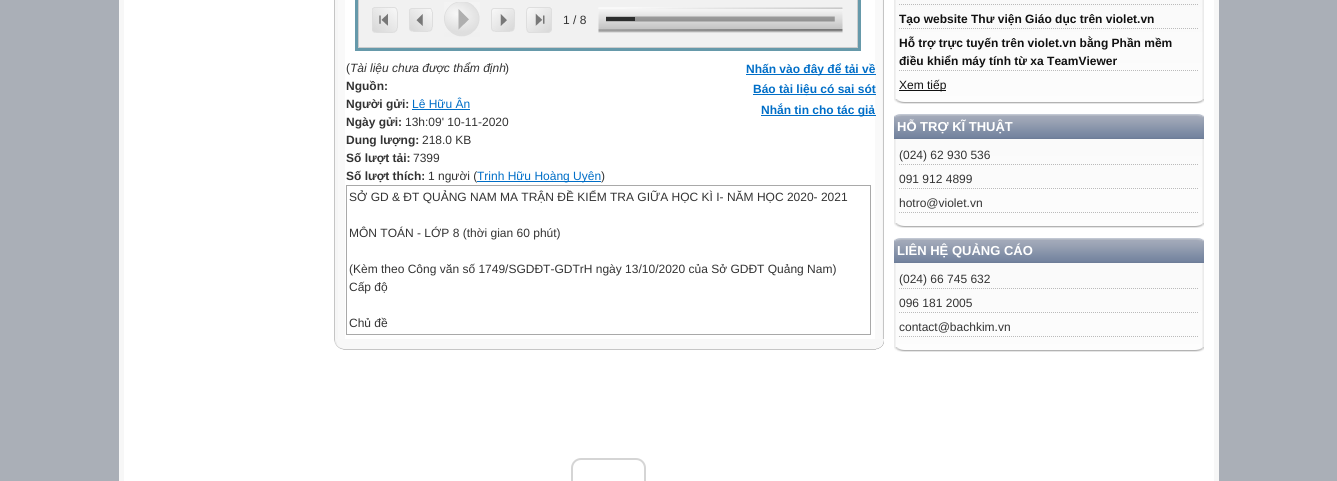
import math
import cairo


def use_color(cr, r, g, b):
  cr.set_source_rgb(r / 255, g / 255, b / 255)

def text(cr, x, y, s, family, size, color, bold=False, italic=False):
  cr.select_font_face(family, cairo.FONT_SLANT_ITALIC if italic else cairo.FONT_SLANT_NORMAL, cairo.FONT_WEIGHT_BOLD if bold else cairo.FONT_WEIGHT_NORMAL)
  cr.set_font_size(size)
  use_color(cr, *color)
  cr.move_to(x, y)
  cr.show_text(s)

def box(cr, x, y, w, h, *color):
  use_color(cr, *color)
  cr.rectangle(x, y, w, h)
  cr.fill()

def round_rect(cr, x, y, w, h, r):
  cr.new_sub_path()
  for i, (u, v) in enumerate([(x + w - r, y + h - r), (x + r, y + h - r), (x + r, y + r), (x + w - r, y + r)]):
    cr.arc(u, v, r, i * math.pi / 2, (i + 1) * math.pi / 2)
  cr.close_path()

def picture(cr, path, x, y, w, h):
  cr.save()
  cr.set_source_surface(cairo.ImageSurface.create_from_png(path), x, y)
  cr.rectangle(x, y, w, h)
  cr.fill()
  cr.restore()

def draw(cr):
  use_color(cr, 170, 175, 183)
  cr.paint()
  box(cr, 124, 0, 1090, 481, 255, 255, 255)
  box(cr, 1214, 0, 5, 481, 247, 247, 247)
  box(cr, 119, 0, 5, 481, 247, 247, 247)
  picture(cr, "img_01.png", 334, 0, 550, 339)
  picture(cr, "img_02.png", 334, 339, 550, 11)
  cr.rectangle(356.5, -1.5, 503, 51)
  use_color(cr, 102, 153, 170)
  cr.set_line_width(3)
  cr.stroke()
  use_color(cr, 241, 241, 241)
  cr.rectangle(358.5, -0.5, 499, 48)
  cr.fill_preserve()
  use_color(cr, 204, 204, 204)
  cr.set_line_width(1)
  cr.stroke()
  picture(cr, "img_03.png", 372, 7, 26, 26)
  picture(cr, "img_04.png", 409, 8, 24, 24)
  picture(cr, "img_05.png", 444, 2, 36, 35)
  picture(cr, "img_06.png", 491, 8, 24, 24)
  picture(cr, "img_07.png", 526, 7, 26, 26)
  picture(cr, "img_08.png", 598, 7, 245, 26)
  box(cr, 606, 17, 29, 4, 44, 45, 45)
  box(cr, 412, 109, 58, 1, 0, 110, 199)
  box(cr, 746, 74, 130, 1, 0, 110, 199)
  box(cr, 753, 94, 123, 1, 0, 110, 199)
  box(cr, 761, 115, 115, 1, 0, 110, 199)
  cr.rectangle(346.5, 185.5, 524, 149)
  use_color(cr, 169, 169, 169)
  cr.stroke()
  round_rect(cr, 572, 459, 73, 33, 9)
  use_color(cr, 213, 213, 213)
  cr.set_line_width(2)
  cr.stroke()
  picture(cr, "img_09.png", 894, 0, 310, 104)
  cr.new_path()
  cr.move_to(899, 4.5)
  cr.line_to(1199, 4.5)
  use_color(cr, 187, 187, 187)
  cr.set_line_width(1)
  cr.set_dash([1, 1])
  cr.stroke()
  cr.new_path()
  cr.move_to(899, 28.5)
  cr.line_to(1199, 28.5)
  cr.stroke()
  cr.new_path()
  cr.move_to(899, 70.5)
  cr.line_to(1199, 70.5)
  cr.stroke()
  box(cr, 899, 90, 47, 1, 17, 17, 17)
  picture(cr, "img_10.png", 894, 114, 310, 25)
  picture(cr, "img_11.png", 894, 139, 310, 89)
  cr.new_path()
  cr.move_to(899, 164.5)
  cr.line_to(1199, 164.5)
  use_color(cr, 187, 187, 187)
  cr.stroke()
  cr.new_path()
  cr.move_to(899, 188.5)
  cr.line_to(1199, 188.5)
  cr.stroke()
  cr.new_path()
  cr.move_to(899, 212.5)
  cr.line_to(1199, 212.5)
  cr.stroke()
  picture(cr, "img_10.png", 894, 238, 310, 25)
  picture(cr, "img_11.png", 894, 263, 310, 89)
  cr.new_path()
  cr.move_to(899, 288.5)
  cr.line_to(1199, 288.5)
  cr.stroke()
  cr.new_path()
  cr.move_to(899, 312.5)
  cr.line_to(1199, 312.5)
  cr.stroke()
  cr.new_path()
  cr.move_to(899, 336.5)
  cr.line_to(1199, 336.5)
  cr.stroke()
  text(cr, 563, 24, "1 / 8", "Liberation Sans", 12, (51, 51, 51))
  text(cr, 346, 72, "(", "Liberation Sans", 12, (51, 51, 51))
  text(cr, 350, 72, "Tài liệu chưa được thẩm định", "Liberation Sans", 12, (51, 51, 51), italic=True)
  text(cr, 505, 72, ")", "Liberation Sans", 12, (51, 51, 51))
  text(cr, 346, 90, "Nguồn:", "Liberation Sans", 12, (51, 51, 51), bold=True)
  text(cr, 346, 108, "Người gửi:", "Liberation Sans", 12, (51, 51, 51), bold=True)
  text(cr, 412, 108, "Lê Hữu Ân", "Liberation Sans", 12, (0, 110, 199))
  text(cr, 346, 126, "Ngày gửi:", "Liberation Sans", 12, (51, 51, 51), bold=True)
  text(cr, 405, 126, "13h:09' 10-11-2020", "Liberation Sans", 12, (51, 51, 51))
  text(cr, 346, 144, "Dung lượng:", "Liberation Sans", 12, (51, 51, 51), bold=True)
  text(cr, 422, 144, "218.0 KB", "Liberation Sans", 12, (51, 51, 51))
  text(cr, 346, 162, "Số lượt tải:", "Liberation Sans", 12, (51, 51, 51), bold=True)
  text(cr, 413, 162, "7399", "Liberation Sans", 12, (51, 51, 51))
  text(cr, 346, 180, "Số lượt thích:", "Liberation Sans", 12, (51, 51, 51), bold=True)
  text(cr, 428, 180, "1 người (", "Liberation Sans", 12, (51, 51, 51))
  box(cr, 477, 181, 124, 1, 0, 110, 199)
  text(cr, 477, 180, "Trịnh Hữu Hoàng Uyên", "Liberation Sans", 12, (0, 110, 199))
  text(cr, 601, 180, ")", "Liberation Sans", 12, (51, 51, 51))
  text(cr, 746, 73, "Nhấn vào đây để tải về", "Liberation Sans", 12, (0, 110, 199), bold=True)
  text(cr, 753, 93, "Báo tài liệu có sai sót", "Liberation Sans", 12, (0, 110, 199), bold=True)
  text(cr, 761, 114, "Nhắn tin cho tác giả", "Liberation Sans", 12, (0, 110, 199), bold=True)
  text(cr, 349, 201, "SỞ GD & ĐT QUẢNG NAM MA TRẬN ĐỀ KIỂM TRA GIỮA HỌC KÌ I- NĂM HỌC 2020- 2021", "Liberation Sans", 12, (51, 51, 51))
  text(cr, 349, 237, "MÔN TOÁN - LỚP 8 (thời gian 60 phút)", "Liberation Sans", 12, (51, 51, 51))
  text(cr, 349, 273, "(Kèm theo Công văn số 1749/SGDĐT-GDTrH ngày 13/10/2020 của Sở GDĐT Quảng Nam)", "Liberation Sans", 12, (51, 51, 51))
  text(cr, 349, 291, "Cấp độ", "Liberation Sans", 12, (51, 51, 51))
  text(cr, 349, 327, "Chủ đề", "Liberation Sans", 12, (51, 51, 51))
  text(cr, 899, 23, "Tạo website Thư viện Giáo dục trên violet.vn", "Liberation Sans", 12, (17, 17, 17), bold=True)
  text(cr, 899, 47, "Hỗ trợ trực tuyến trên violet.vn bằng Phần mềm", "Liberation Sans", 12, (17, 17, 17), bold=True)
  text(cr, 899, 65, "điều khiển máy tính từ xa TeamViewer", "Liberation Sans", 12, (17, 17, 17), bold=True)
  text(cr, 899, 89, "Xem tiếp", "Liberation Sans", 12, (17, 17, 17))
  text(cr, 897, 131, "HỖ TRỢ KĨ THUẬT", "Liberation Sans", 13, (255, 255, 255), bold=True)
  text(cr, 899, 159, "(024) 62 930 536", "Liberation Sans", 12, (51, 51, 51))
  text(cr, 899, 183, "091 912 4899", "Liberation Sans", 12, (51, 51, 51))
  text(cr, 899, 207, "hotro@violet.vn", "Liberation Sans", 12, (51, 51, 51))
  text(cr, 897, 255, "LIÊN HỆ QUẢNG CÁO", "Liberation Sans", 13, (255, 255, 255), bold=True)
  text(cr, 899, 283, "(024) 66 745 632", "Liberation Sans", 12, (51, 51, 51))
  text(cr, 899, 307, "096 181 2005", "Liberation Sans", 12, (51, 51, 51))
  text(cr, 899, 331, "contact@bachkim.vn", "Liberation Sans", 12, (51, 51, 51))


surface = cairo.ImageSurface(cairo.FORMAT_RGB24, 1337, 481)
cr = cairo.Context(surface)
options = cairo.FontOptions()
options.set_hint_metrics(cairo.HINT_METRICS_OFF)
options.set_hint_style(cairo.HINT_STYLE_NONE)
cr.set_font_options(options)
cr.set_miter_limit(4)
draw(cr)
surface.write_to_png("out.png")
